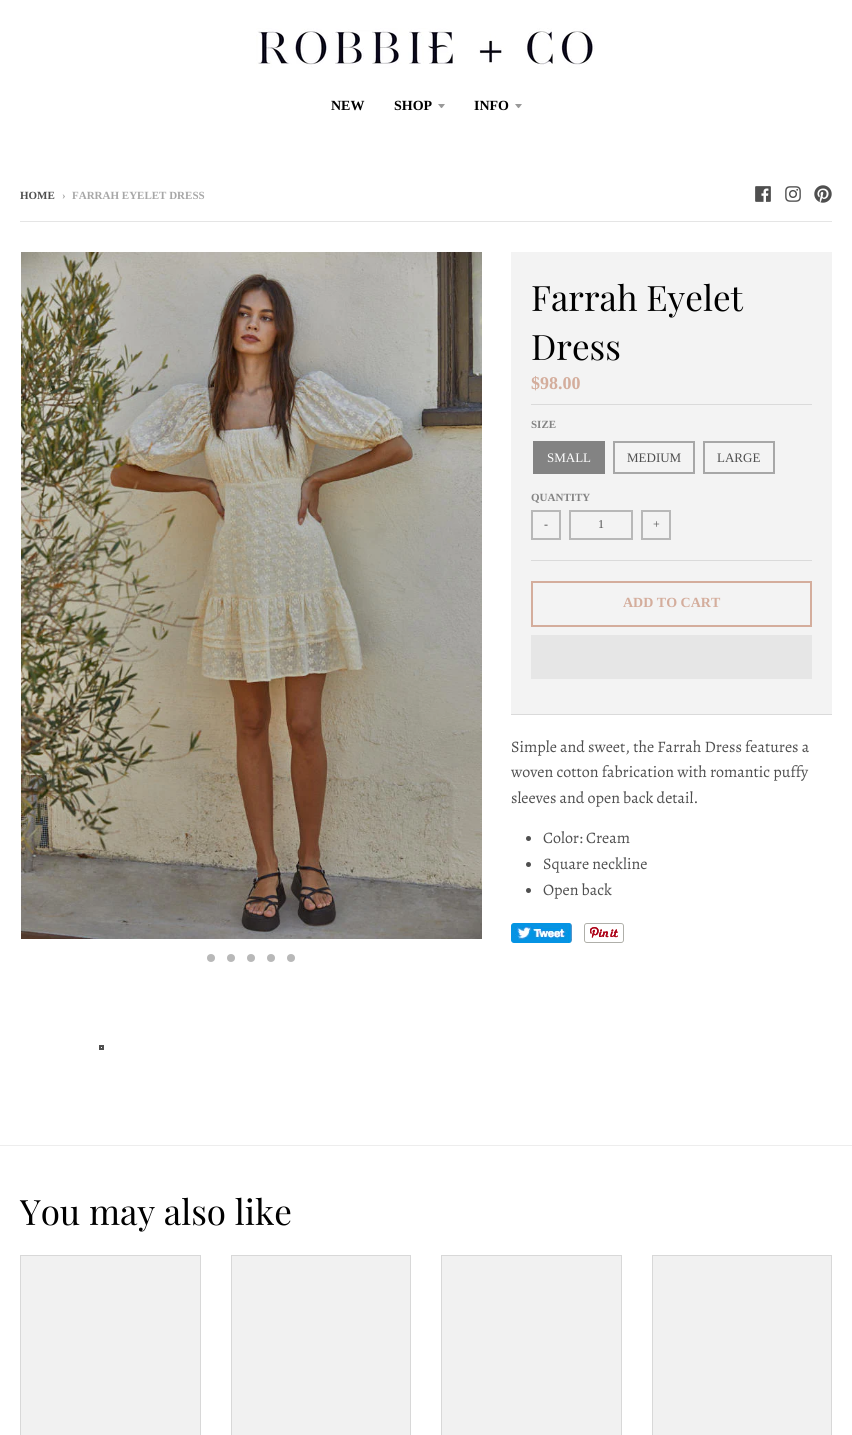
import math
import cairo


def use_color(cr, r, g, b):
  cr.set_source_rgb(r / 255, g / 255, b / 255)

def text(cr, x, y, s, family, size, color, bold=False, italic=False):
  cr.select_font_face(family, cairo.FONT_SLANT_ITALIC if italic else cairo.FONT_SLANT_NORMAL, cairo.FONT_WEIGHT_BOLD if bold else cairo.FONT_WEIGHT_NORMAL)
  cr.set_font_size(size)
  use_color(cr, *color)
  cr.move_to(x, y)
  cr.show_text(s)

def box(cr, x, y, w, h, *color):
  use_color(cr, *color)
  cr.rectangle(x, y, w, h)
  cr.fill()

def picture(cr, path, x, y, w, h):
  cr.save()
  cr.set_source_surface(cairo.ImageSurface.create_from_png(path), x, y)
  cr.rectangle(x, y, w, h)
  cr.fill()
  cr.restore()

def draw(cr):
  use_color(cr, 255, 255, 255)
  cr.paint()
  picture(cr, "img_01.png", 256, 28, 339, 40)
  use_color(cr, 153, 153, 153)
  cr.new_path()
  cr.move_to(438, 104)
  cr.curve_to(442.5, 109.5, 440.5, 109.5, 445, 104)
  cr.close_path()
  cr.fill()
  cr.new_path()
  cr.move_to(515, 104)
  cr.curve_to(519.5, 109.5, 517.5, 109.5, 522, 104)
  cr.close_path()
  cr.fill()
  box(cr, 0, 1145, 852, 1, 237, 237, 237)
  picture(cr, "img_02.png", 755, 186, 16, 16)
  picture(cr, "img_03.png", 785, 186, 16, 16)
  picture(cr, "img_04.png", 814, 185, 18, 18)
  box(cr, 20, 221, 812, 1, 229, 229, 229)
  picture(cr, "img_05.png", 21, 252, 461, 687)
  use_color(cr, 184, 184, 184)
  cr.arc(211, 958, 4, 0, 2 * math.pi)
  cr.fill()
  cr.arc(231, 958, 4, 0, 2 * math.pi)
  cr.fill()
  cr.arc(251, 958, 4, 0, 2 * math.pi)
  cr.fill()
  cr.arc(271, 958, 4, 0, 2 * math.pi)
  cr.fill()
  cr.arc(291, 958, 4, 0, 2 * math.pi)
  cr.fill()
  cr.rectangle(100, 1046, 3, 3)
  use_color(cr, 79, 79, 79)
  cr.stroke()
  box(cr, 511, 252, 321, 462, 243, 243, 243)
  box(cr, 511, 714, 321, 1, 218, 218, 218)
  box(cr, 531, 404, 281, 1, 218, 218, 218)
  box(cr, 531, 560, 281, 1, 218, 218, 218)
  box(cr, 533, 441, 72, 33, 131, 131, 131)
  cr.rectangle(614, 442, 80, 31)
  use_color(cr, 167, 167, 167)
  cr.stroke()
  cr.rectangle(704, 442, 70, 31)
  cr.stroke()
  cr.rectangle(532, 511, 28, 28)
  use_color(cr, 184, 184, 184)
  cr.stroke()
  cr.rectangle(570, 511, 62, 28)
  cr.stroke()
  cr.rectangle(642, 511, 28, 28)
  cr.stroke()
  cr.rectangle(532, 582, 279, 44)
  use_color(cr, 212, 173, 156)
  cr.stroke()
  box(cr, 531, 635, 281, 44, 230, 230, 230)
  use_color(cr, 79, 79, 79)
  cr.arc(528.5, 838.5, 2.5, 0, 2 * math.pi)
  cr.fill()
  cr.arc(528.5, 864.5, 2.5, 0, 2 * math.pi)
  cr.fill()
  cr.arc(528.5, 890.5, 2.5, 0, 2 * math.pi)
  cr.fill()
  picture(cr, "img_06.png", 511, 923, 61, 20)
  picture(cr, "img_07.png", 584, 923, 40, 20)
  use_color(cr, 241, 241, 241)
  cr.rectangle(20.5, 1255.5, 180, 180)
  cr.fill_preserve()
  use_color(cr, 216, 216, 216)
  cr.set_line_width(1)
  cr.stroke()
  use_color(cr, 241, 241, 241)
  cr.rectangle(231.5, 1255.5, 179, 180)
  cr.fill_preserve()
  use_color(cr, 216, 216, 216)
  cr.stroke()
  use_color(cr, 241, 241, 241)
  cr.rectangle(441.5, 1255.5, 180, 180)
  cr.fill_preserve()
  use_color(cr, 216, 216, 216)
  cr.stroke()
  use_color(cr, 241, 241, 241)
  cr.rectangle(652.5, 1255.5, 179, 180)
  cr.fill_preserve()
  use_color(cr, 216, 216, 216)
  cr.stroke()
  text(cr, 331, 110, "NEW", "Liberation Serif", 14, (0, 0, 0), bold=True)
  text(cr, 394, 110, "SHOP", "Liberation Serif", 14, (0, 0, 0), bold=True)
  text(cr, 474, 110, "INFO", "Liberation Serif", 14, (0, 0, 0), bold=True)
  text(cr, 20, 199, "HOME", "Liberation Serif", 11, (79, 79, 79), bold=True)
  text(cr, 62, 199, "›", "Liberation Serif", 11, (167, 167, 167), bold=True)
  text(cr, 72, 199, "FARRAH EYELET DRESS", "Liberation Serif", 11, (167, 167, 167), bold=True)
  text(cr, 531, 311, "Farrah Eyelet", "Playfair Display", 35, (0, 0, 0))
  text(cr, 531, 360, "Dress", "Playfair Display", 35, (0, 0, 0))
  text(cr, 531, 389, "$98.00", "Liberation Serif", 18, (212, 173, 156), bold=True)
  text(cr, 531, 428, "SIZE", "Liberation Serif", 11, (131, 131, 131), bold=True)
  text(cr, 547, 462, "SMALL", "Liberation Serif", 13, (255, 255, 255))
  text(cr, 627, 462, "MEDIUM", "Liberation Serif", 13, (79, 79, 79))
  text(cr, 717, 462, "LARGE", "Liberation Serif", 13, (79, 79, 79))
  text(cr, 531, 501, "QUANTITY", "Liberation Serif", 11, (131, 131, 131), bold=True)
  text(cr, 544, 528, "-", "Liberation Serif", 12, (79, 79, 79))
  text(cr, 598, 528, "1", "Liberation Serif", 12, (79, 79, 79))
  text(cr, 653, 528, "+", "Liberation Serif", 12, (79, 79, 79))
  text(cr, 623, 607, "ADD TO CART", "Liberation Serif", 14, (212, 173, 156), bold=True)
  text(cr, 511, 752, "Simple and sweet, the Farrah Dress features a", "Alegreya", 16, (79, 79, 79))
  text(cr, 511, 777, "woven cotton fabrication with romantic puffy", "Alegreya", 16, (79, 79, 79))
  text(cr, 511, 803, "sleeves and open back detail.", "Alegreya", 16, (79, 79, 79))
  text(cr, 543, 843, "Color: Cream", "Alegreya", 16, (79, 79, 79))
  text(cr, 543, 869, "Square neckline", "Alegreya", 16, (79, 79, 79))
  text(cr, 543, 895, "Open back", "Alegreya", 16, (79, 79, 79))
  text(cr, 20, 1225, "You may also like", "Playfair Display", 35, (0, 0, 0))


surface = cairo.ImageSurface(cairo.FORMAT_RGB24, 852, 1435)
cr = cairo.Context(surface)
options = cairo.FontOptions()
options.set_hint_metrics(cairo.HINT_METRICS_OFF)
options.set_hint_style(cairo.HINT_STYLE_NONE)
cr.set_font_options(options)
cr.set_miter_limit(4)
draw(cr)
surface.write_to_png("out.png")
